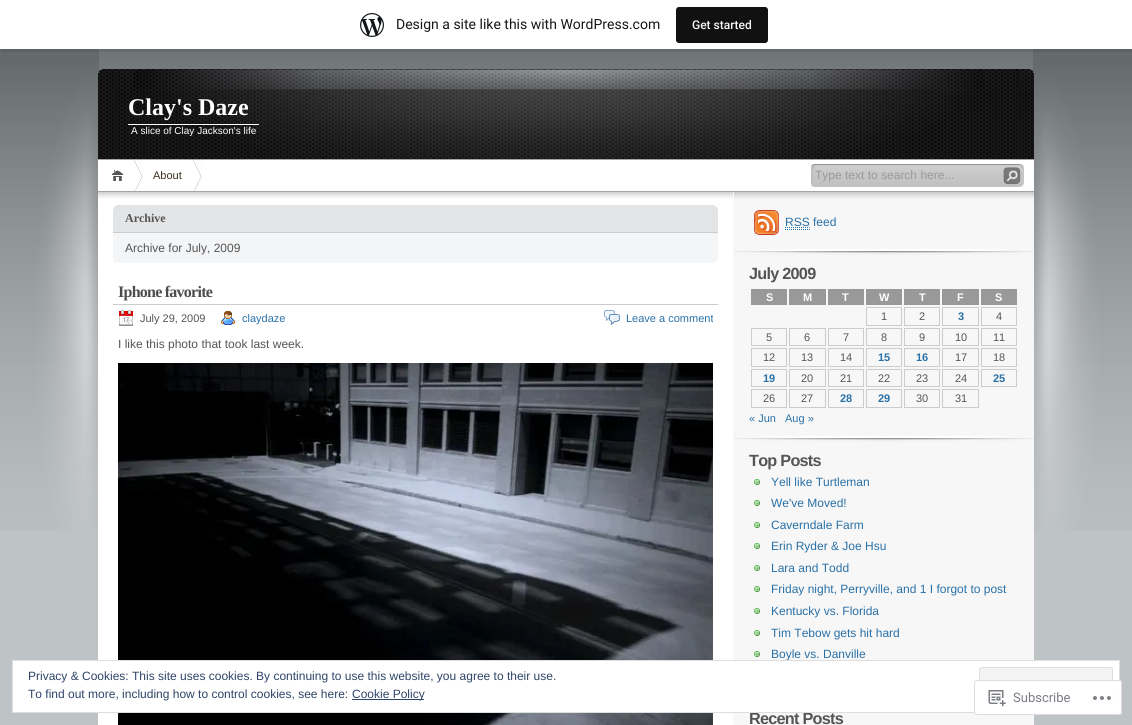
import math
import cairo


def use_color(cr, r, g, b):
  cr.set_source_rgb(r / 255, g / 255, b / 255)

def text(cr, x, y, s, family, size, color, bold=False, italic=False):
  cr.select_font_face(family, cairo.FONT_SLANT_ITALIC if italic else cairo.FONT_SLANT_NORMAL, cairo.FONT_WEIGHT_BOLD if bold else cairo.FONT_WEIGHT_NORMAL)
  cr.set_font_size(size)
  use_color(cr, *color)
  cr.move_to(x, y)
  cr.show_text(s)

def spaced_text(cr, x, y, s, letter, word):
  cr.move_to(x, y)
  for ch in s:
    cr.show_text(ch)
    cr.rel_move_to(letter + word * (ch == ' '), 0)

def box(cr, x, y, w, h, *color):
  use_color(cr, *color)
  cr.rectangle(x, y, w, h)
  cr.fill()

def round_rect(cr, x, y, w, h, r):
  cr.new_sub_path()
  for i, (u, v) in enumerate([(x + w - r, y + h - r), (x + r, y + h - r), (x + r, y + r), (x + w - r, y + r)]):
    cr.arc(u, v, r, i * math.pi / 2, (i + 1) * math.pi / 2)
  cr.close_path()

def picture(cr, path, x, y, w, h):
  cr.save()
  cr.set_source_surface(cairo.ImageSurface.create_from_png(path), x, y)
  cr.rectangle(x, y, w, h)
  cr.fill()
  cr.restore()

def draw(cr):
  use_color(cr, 190, 195, 198)
  cr.paint()
  picture(cr, "img_01.png", 99, 49, 934, 20)
  picture(cr, "img_03.png", 0, 49, 1132, 482)
  cr.set_source_rgba(0, 0, 0, 0.08)
  cr.new_path()
  cr.move_to(1, 49)
  cr.line_to(1, 52)
  cr.line_to(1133, 52)
  cr.line_to(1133, 3)
  cr.line_to(1132, 3)
  cr.line_to(1132, 49)
  cr.close_path()
  cr.fill()
  box(cr, 0, 0, 1132, 49, 255, 255, 255)
  picture(cr, "img_02.png", 360, 13, 24, 24)
  use_color(cr, 17, 17, 17)
  round_rect(cr, 676, 7, 92, 36, 3)
  cr.fill()
  picture(cr, "img_04.png", 98, 69, 936, 90)
  box(cr, 98, 159, 936, 1, 166, 166, 166)
  box(cr, 128, 124, 131, 1, 255, 255, 255)
  box(cr, 98, 160, 936, 31, 255, 255, 255)
  box(cr, 98, 191, 936, 1, 166, 166, 166)
  picture(cr, "img_05.png", 112, 170, 11, 11)
  picture(cr, "img_06.png", 134, 160, 9, 31)
  picture(cr, "img_07.png", 193, 160, 9, 31)
  picture(cr, "img_08.png", 811, 164, 213, 23)
  box(cr, 98, 199, 635, 526, 255, 255, 255)
  box(cr, 733, 192, 301, 533, 247, 247, 247)
  picture(cr, "img_09.png", 98, 192, 635, 7)
  box(cr, 113, 205, 605, 27, 227, 228, 230)
  picture(cr, "img_10.png", 113, 205, 605, 4)
  box(cr, 113, 232, 605, 1, 204, 204, 204)
  box(cr, 113, 233, 605, 30, 244, 245, 247)
  picture(cr, "img_11.png", 113, 259, 605, 4)
  box(cr, 113, 304, 605, 1, 204, 204, 204)
  picture(cr, "img_12.png", 119, 310, 14, 16)
  picture(cr, "img_13.png", 221, 311, 14, 14)
  picture(cr, "img_14.png", 604, 310, 16, 15)
  picture(cr, "img_15.png", 118, 363, 595, 362)
  picture(cr, "img_16.png", 734, 192, 300, 7)
  picture(cr, "img_17.png", 734, 249, 300, 6)
  picture(cr, "img_18.png", 754, 210, 25, 25)
  cr.new_path()
  cr.move_to(785, 229.5)
  cr.line_to(810, 229.5)
  cr.move_to(785, 227.5)
  cr.line_to(809.5, 227.5)
  use_color(cr, 41, 112, 166)
  cr.set_line_width(1)
  cr.set_dash([1, 1])
  cr.stroke()
  picture(cr, "img_17.png", 734, 436, 300, 6)
  box(cr, 751, 289, 36, 16, 153, 153, 153)
  box(cr, 789, 289, 37, 16, 153, 153, 153)
  box(cr, 828, 289, 36, 16, 153, 153, 153)
  box(cr, 866, 289, 36, 16, 153, 153, 153)
  box(cr, 904, 289, 36, 16, 153, 153, 153)
  box(cr, 942, 289, 37, 16, 153, 153, 153)
  box(cr, 981, 289, 36, 16, 153, 153, 153)
  cr.rectangle(866.5, 307.5, 35, 18)
  use_color(cr, 204, 204, 204)
  cr.set_dash([])
  cr.stroke()
  cr.rectangle(904.5, 307.5, 35, 18)
  cr.stroke()
  cr.rectangle(942.5, 307.5, 36, 18)
  cr.stroke()
  cr.rectangle(981.5, 307.5, 35, 18)
  cr.stroke()
  cr.rectangle(751.5, 328.5, 35, 17)
  cr.stroke()
  cr.rectangle(789.5, 328.5, 36, 17)
  cr.stroke()
  cr.rectangle(828.5, 328.5, 35, 17)
  cr.stroke()
  cr.rectangle(866.5, 328.5, 35, 17)
  cr.stroke()
  cr.rectangle(904.5, 328.5, 35, 17)
  cr.stroke()
  cr.rectangle(942.5, 328.5, 36, 17)
  cr.stroke()
  cr.rectangle(981.5, 328.5, 35, 17)
  cr.stroke()
  cr.rectangle(751.5, 348.5, 35, 18)
  cr.stroke()
  cr.rectangle(789.5, 348.5, 36, 18)
  cr.stroke()
  cr.rectangle(828.5, 348.5, 35, 18)
  cr.stroke()
  cr.rectangle(866.5, 348.5, 35, 18)
  cr.stroke()
  cr.rectangle(904.5, 348.5, 35, 18)
  cr.stroke()
  cr.rectangle(942.5, 348.5, 36, 18)
  cr.stroke()
  cr.rectangle(981.5, 348.5, 35, 18)
  cr.stroke()
  cr.rectangle(751.5, 369.5, 35, 17)
  cr.stroke()
  cr.rectangle(789.5, 369.5, 36, 17)
  cr.stroke()
  cr.rectangle(828.5, 369.5, 35, 17)
  cr.stroke()
  cr.rectangle(866.5, 369.5, 35, 17)
  cr.stroke()
  cr.rectangle(904.5, 369.5, 35, 17)
  cr.stroke()
  cr.rectangle(942.5, 369.5, 36, 17)
  cr.stroke()
  cr.rectangle(981.5, 369.5, 35, 17)
  cr.stroke()
  cr.rectangle(751.5, 389.5, 35, 18)
  cr.stroke()
  cr.rectangle(789.5, 389.5, 36, 18)
  cr.stroke()
  cr.rectangle(828.5, 389.5, 35, 18)
  cr.stroke()
  cr.rectangle(866.5, 389.5, 35, 18)
  cr.stroke()
  cr.rectangle(904.5, 389.5, 35, 18)
  cr.stroke()
  cr.rectangle(942.5, 389.5, 36, 18)
  cr.stroke()
  picture(cr, "img_19.png", 754, 479, 6, 6)
  picture(cr, "img_19.png", 754, 500, 6, 6)
  picture(cr, "img_19.png", 754, 522, 6, 6)
  picture(cr, "img_19.png", 754, 543, 6, 6)
  picture(cr, "img_19.png", 754, 565, 6, 6)
  picture(cr, "img_19.png", 754, 586, 6, 6)
  picture(cr, "img_19.png", 754, 608, 6, 6)
  picture(cr, "img_19.png", 754, 630, 6, 6)
  picture(cr, "img_19.png", 754, 651, 6, 6)
  text(cr, 396, 29, "Design a site like this with WordPress.com", "Roboto", 14, (23, 23, 23))
  text(cr, 692, 29, "Get started", "Roboto Medium", 12, (246, 247, 247))
  text(cr, 128, 115, "Clay's Daze", "Liberation Serif", 24, (255, 255, 255), bold=True)
  text(cr, 131, 134, "A slice of Clay Jackson's life", "Liberation Sans", 10, (255, 255, 255))
  text(cr, 153, 179, "About", "Liberation Sans", 11, (56, 46, 31))
  text(cr, 815, 179, "Type text to search here...", "Liberation Sans", 12, (153, 153, 153))
  text(cr, 125, 222, "Archive", "Liberation Serif", 12, (85, 85, 85), bold=True)
  text(cr, 125, 252, "Archive for July, 2009", "Liberation Sans", 12, (85, 85, 85))
  cr.select_font_face("Liberation Serif", cairo.FONT_SLANT_NORMAL, cairo.FONT_WEIGHT_BOLD)
  cr.set_font_size(16)
  use_color(cr, 76, 76, 76)
  spaced_text(cr, 118, 297, "Iphone favorite", -0.75, 0)
  text(cr, 140, 322, "July 29, 2009", "Liberation Sans", 11, (85, 85, 85))
  text(cr, 242, 322, "claydaze", "Liberation Sans", 11, (41, 112, 166))
  text(cr, 626, 322, "Leave a comment", "Liberation Sans", 11, (41, 112, 166))
  text(cr, 118, 348, "I like this photo that took last week.", "Liberation Sans", 12, (85, 85, 85))
  text(cr, 785, 226, "RSS feed", "Liberation Sans", 12, (41, 112, 166))
  cr.select_font_face("Liberation Sans", cairo.FONT_SLANT_NORMAL, cairo.FONT_WEIGHT_BOLD)
  cr.set_font_size(16.25)
  use_color(cr, 85, 85, 85)
  spaced_text(cr, 749, 279, "July 2009", -0.75, 0)
  text(cr, 766, 301, "S", "Liberation Sans", 11, (255, 255, 255), bold=True)
  text(cr, 803, 301, "M", "Liberation Sans", 11, (255, 255, 255), bold=True)
  text(cr, 842, 301, "T", "Liberation Sans", 11, (255, 255, 255), bold=True)
  text(cr, 879, 301, "W", "Liberation Sans", 11, (255, 255, 255), bold=True)
  text(cr, 919, 301, "T", "Liberation Sans", 11, (255, 255, 255), bold=True)
  text(cr, 957, 301, "F", "Liberation Sans", 11, (255, 255, 255), bold=True)
  text(cr, 995, 301, "S", "Liberation Sans", 11, (255, 255, 255), bold=True)
  text(cr, 881, 320, "1", "Liberation Sans", 11, (85, 85, 85))
  text(cr, 919, 320, "2", "Liberation Sans", 11, (85, 85, 85))
  text(cr, 958, 320, "3", "Liberation Sans", 11, (41, 112, 166), bold=True)
  text(cr, 996, 320, "4", "Liberation Sans", 11, (85, 85, 85))
  text(cr, 766, 341, "5", "Liberation Sans", 11, (85, 85, 85))
  text(cr, 804, 341, "6", "Liberation Sans", 11, (85, 85, 85))
  text(cr, 843, 341, "7", "Liberation Sans", 11, (85, 85, 85))
  text(cr, 881, 341, "8", "Liberation Sans", 11, (85, 85, 85))
  text(cr, 919, 341, "9", "Liberation Sans", 11, (85, 85, 85))
  text(cr, 955, 341, "10", "Liberation Sans", 11, (85, 85, 85))
  text(cr, 993, 341, "11", "Liberation Sans", 11, (85, 85, 85))
  text(cr, 763, 361, "12", "Liberation Sans", 11, (85, 85, 85))
  text(cr, 801, 361, "13", "Liberation Sans", 11, (85, 85, 85))
  text(cr, 840, 361, "14", "Liberation Sans", 11, (85, 85, 85))
  text(cr, 878, 361, "15", "Liberation Sans", 11, (41, 112, 166), bold=True)
  text(cr, 916, 361, "16", "Liberation Sans", 11, (41, 112, 166), bold=True)
  text(cr, 955, 361, "17", "Liberation Sans", 11, (85, 85, 85))
  text(cr, 993, 361, "18", "Liberation Sans", 11, (85, 85, 85))
  text(cr, 763, 382, "19", "Liberation Sans", 11, (41, 112, 166), bold=True)
  text(cr, 801, 382, "20", "Liberation Sans", 11, (85, 85, 85))
  text(cr, 840, 382, "21", "Liberation Sans", 11, (85, 85, 85))
  text(cr, 878, 382, "22", "Liberation Sans", 11, (85, 85, 85))
  text(cr, 916, 382, "23", "Liberation Sans", 11, (85, 85, 85))
  text(cr, 955, 382, "24", "Liberation Sans", 11, (85, 85, 85))
  text(cr, 993, 382, "25", "Liberation Sans", 11, (41, 112, 166), bold=True)
  text(cr, 763, 402, "26", "Liberation Sans", 11, (85, 85, 85))
  text(cr, 801, 402, "27", "Liberation Sans", 11, (85, 85, 85))
  text(cr, 840, 402, "28", "Liberation Sans", 11, (41, 112, 166), bold=True)
  text(cr, 878, 402, "29", "Liberation Sans", 11, (41, 112, 166), bold=True)
  text(cr, 916, 402, "30", "Liberation Sans", 11, (85, 85, 85))
  text(cr, 955, 402, "31", "Liberation Sans", 11, (85, 85, 85))
  text(cr, 749, 422, "« Jun", "Liberation Sans", 11, (41, 112, 166))
  text(cr, 785, 422, "Aug »", "Liberation Sans", 11, (41, 112, 166))
  cr.select_font_face("Liberation Sans", cairo.FONT_SLANT_NORMAL, cairo.FONT_WEIGHT_BOLD)
  cr.set_font_size(16.25)
  use_color(cr, 85, 85, 85)
  spaced_text(cr, 749, 466, "Top Posts", -0.75, 0)
  text(cr, 771, 486, "Yell like Turtleman", "Liberation Sans", 12, (41, 112, 166))
  text(cr, 771, 507, "We've Moved!", "Liberation Sans", 12, (41, 112, 166))
  text(cr, 771, 529, "Caverndale Farm", "Liberation Sans", 12, (41, 112, 166))
  text(cr, 771, 550, "Erin Ryder & Joe Hsu", "Liberation Sans", 12, (41, 112, 166))
  text(cr, 771, 572, "Lara and Todd", "Liberation Sans", 12, (41, 112, 166))
  text(cr, 771, 593, "Friday night, Perryville, and 1 I forgot to post", "Liberation Sans", 12, (41, 112, 166))
  text(cr, 771, 615, "Kentucky vs. Florida", "Liberation Sans", 12, (41, 112, 166))
  text(cr, 771, 637, "Tim Tebow gets hit hard", "Liberation Sans", 12, (41, 112, 166))
  text(cr, 771, 658, "Boyle vs. Danville", "Liberation Sans", 12, (41, 112, 166))
  cr.select_font_face("Liberation Sans", cairo.FONT_SLANT_NORMAL, cairo.FONT_WEIGHT_BOLD)
  cr.set_font_size(16.25)
  use_color(cr, 85, 85, 85)
  spaced_text(cr, 749, 724, "Recent Posts", -0.75, 0)
  use_color(cr, 255, 255, 255)
  cr.rectangle(12.5, 660.5, 1107, 52)
  cr.fill_preserve()
  use_color(cr, 222, 222, 222)
  cr.stroke()
  text(cr, 28, 680, "Privacy & Cookies: This site uses cookies. By continuing to use this website, you agree to their use.", "Liberation Sans", 12, (46, 68, 103))
  use_color(cr, 243, 243, 243)
  round_rect(cr, 979.5, 667.5, 133, 38, 2.5)
  cr.fill_preserve()
  use_color(cr, 222, 222, 222)
  cr.stroke()
  text(cr, 28, 698, "To find out more, including how to control cookies, see here:", "Liberation Sans", 12, (46, 68, 103))
  box(cr, 352, 699, 72, 1, 46, 68, 103)
  text(cr, 352, 698, "Cookie Policy", "Liberation Sans", 12, (46, 68, 103))
  cr.set_source_rgba(1, 1, 1, 0.98)
  round_rect(cr, 974, 680, 148, 35, 3)
  cr.fill()
  round_rect(cr, 974.5, 680.5, 147, 34, 2.5)
  cr.set_source_rgba(0.863, 0.863, 0.871, 0.98)
  cr.stroke()
  picture(cr, "img_20.png", 988, 690, 18, 17)
  text(cr, 1013, 702, "Subscribe", "Roboto", 13, (122, 126, 132))
  picture(cr, "img_21.png", 1093, 696, 18, 4)


surface = cairo.ImageSurface(cairo.FORMAT_RGB24, 1132, 725)
cr = cairo.Context(surface)
options = cairo.FontOptions()
options.set_hint_metrics(cairo.HINT_METRICS_OFF)
options.set_hint_style(cairo.HINT_STYLE_NONE)
cr.set_font_options(options)
cr.set_miter_limit(4)
draw(cr)
surface.write_to_png("out.png")
